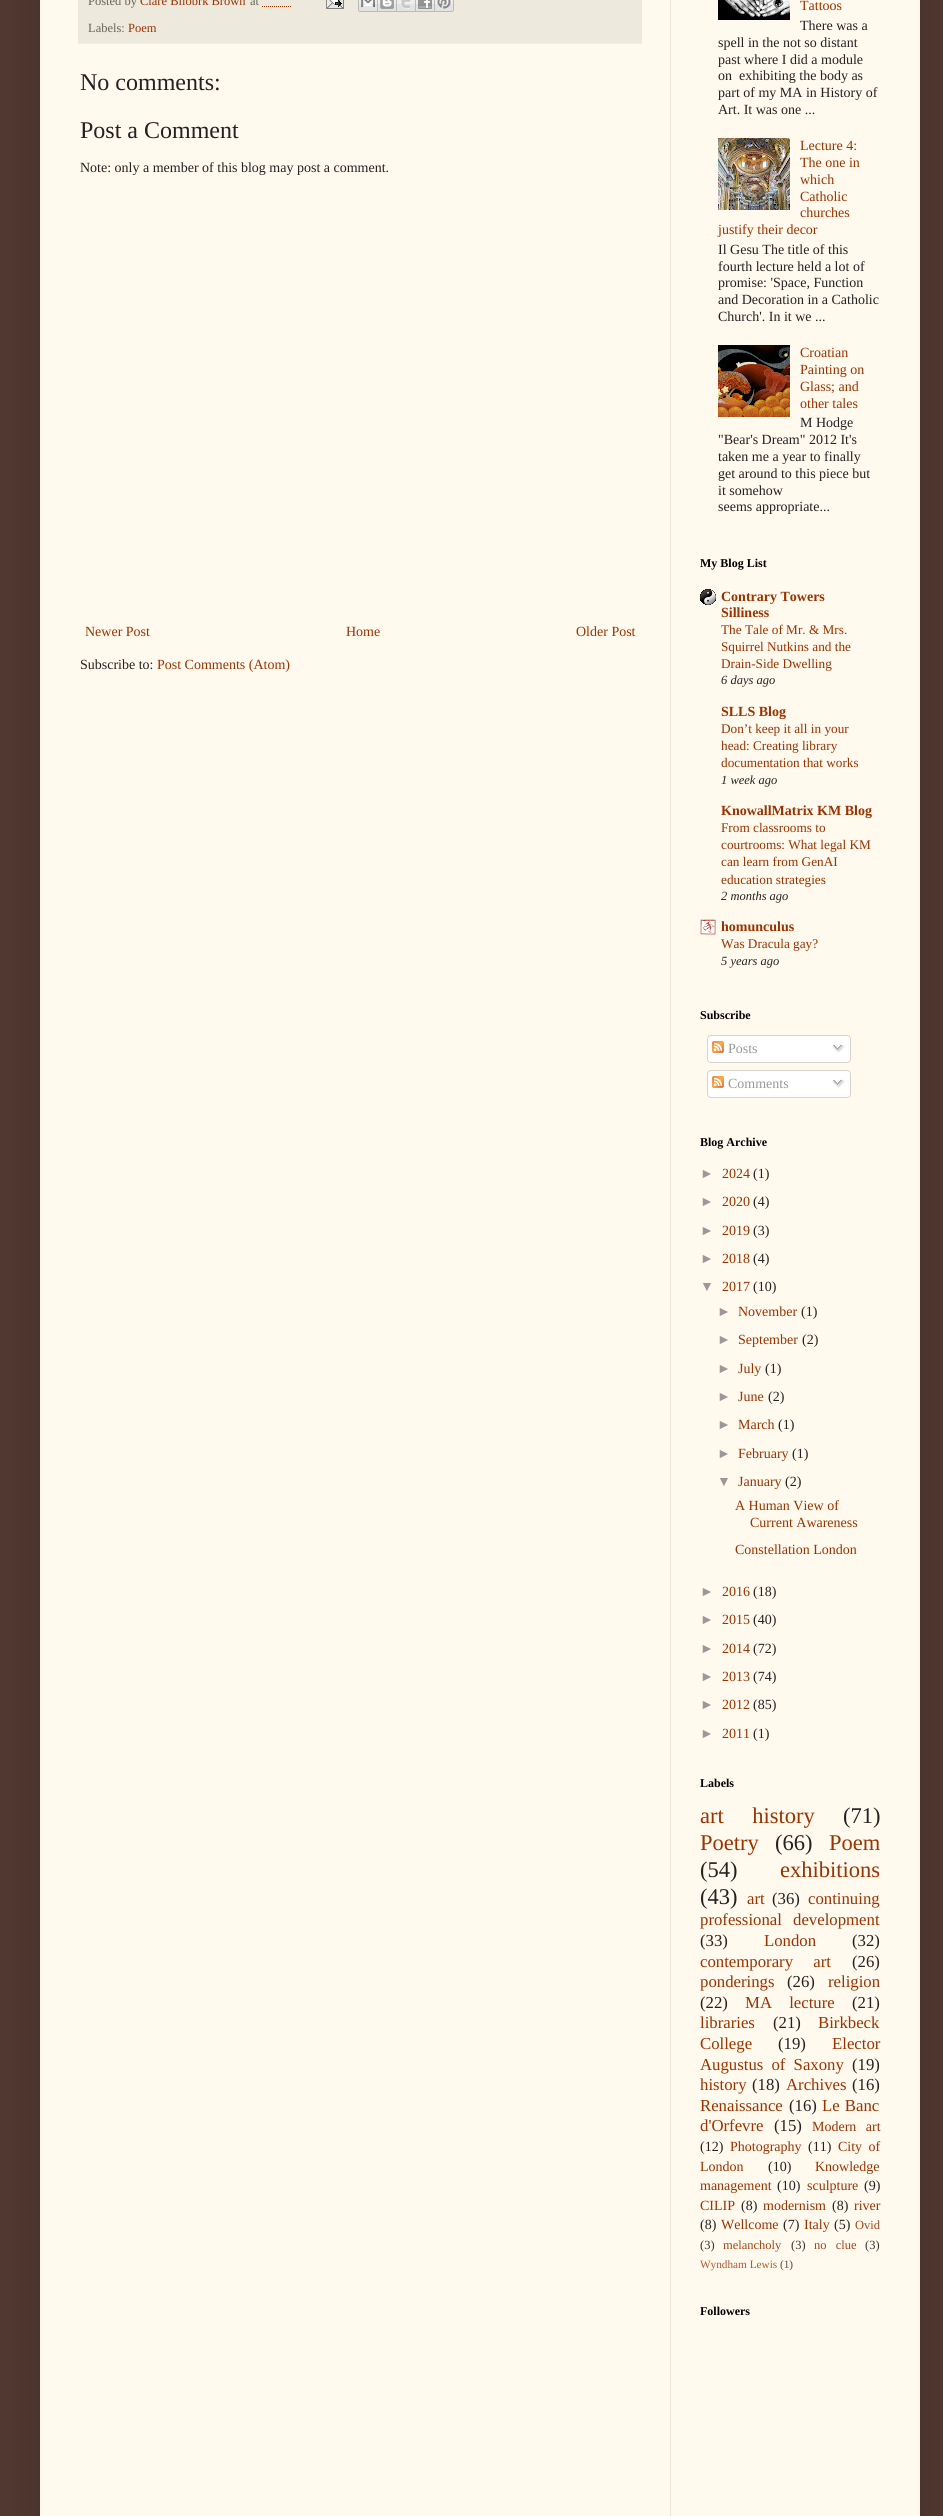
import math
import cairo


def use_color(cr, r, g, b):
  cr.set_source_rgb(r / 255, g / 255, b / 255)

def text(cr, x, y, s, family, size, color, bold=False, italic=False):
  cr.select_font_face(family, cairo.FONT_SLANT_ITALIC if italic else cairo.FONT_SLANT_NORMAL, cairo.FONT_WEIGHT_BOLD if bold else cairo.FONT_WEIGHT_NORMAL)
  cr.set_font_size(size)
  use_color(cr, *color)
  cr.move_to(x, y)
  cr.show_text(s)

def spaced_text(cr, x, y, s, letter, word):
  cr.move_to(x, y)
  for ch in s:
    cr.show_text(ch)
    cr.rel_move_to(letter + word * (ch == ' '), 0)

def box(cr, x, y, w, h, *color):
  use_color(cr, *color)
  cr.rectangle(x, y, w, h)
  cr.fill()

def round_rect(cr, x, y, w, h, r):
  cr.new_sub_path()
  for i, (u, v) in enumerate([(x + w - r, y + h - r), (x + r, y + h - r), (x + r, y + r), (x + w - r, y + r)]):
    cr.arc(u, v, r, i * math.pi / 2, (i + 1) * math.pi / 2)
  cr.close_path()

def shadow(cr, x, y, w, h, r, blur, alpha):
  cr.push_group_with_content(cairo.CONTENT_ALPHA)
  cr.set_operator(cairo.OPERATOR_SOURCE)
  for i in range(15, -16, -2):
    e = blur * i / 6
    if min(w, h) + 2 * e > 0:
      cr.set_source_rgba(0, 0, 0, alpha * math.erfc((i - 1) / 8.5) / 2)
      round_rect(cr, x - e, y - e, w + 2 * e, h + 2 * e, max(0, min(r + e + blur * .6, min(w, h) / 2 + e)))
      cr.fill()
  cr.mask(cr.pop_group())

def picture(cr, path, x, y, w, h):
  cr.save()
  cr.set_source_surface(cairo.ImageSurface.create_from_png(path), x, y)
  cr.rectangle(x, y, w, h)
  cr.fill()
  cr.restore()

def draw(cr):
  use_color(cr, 81, 56, 49)
  cr.paint()
  use_color(cr, 0, 0, 0)
  shadow(cr, 40, -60, 880, 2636, 0, 20, 0.15)
  box(cr, 40, 0, 880, 2516, 255, 249, 238)
  box(cr, 78, 0, 564, 43, 238, 233, 221)
  box(cr, 78, 43, 564, 1, 238, 238, 238)
  cr.new_path()
  cr.move_to(262, 6.5)
  cr.line_to(291, 6.5)
  use_color(cr, 153, 51, 0)
  cr.set_line_width(1)
  cr.set_dash([1, 1])
  cr.stroke()
  picture(cr, "img_01.png", 326, 0, 18, 9)
  picture(cr, "img_02.png", 358, 0, 20, 12)
  picture(cr, "img_03.png", 378, 0, 19, 12)
  picture(cr, "img_04.png", 397, 0, 19, 12)
  picture(cr, "img_05.png", 416, 0, 19, 12)
  picture(cr, "img_06.png", 435, 0, 19, 12)
  picture(cr, "img_07.png", 718, 0, 72, 20)
  picture(cr, "img_08.png", 718, 138, 72, 72)
  picture(cr, "img_09.png", 718, 345, 72, 72)
  picture(cr, "img_10.png", 700, 589, 16, 16)
  picture(cr, "img_11.png", 700, 919, 16, 16)
  picture(cr, "img_12.png", 707, 1035, 144, 25)
  picture(cr, "img_13.png", 712, 1041, 12, 12)
  picture(cr, "img_14.png", 832, 1044, 13, 9)
  picture(cr, "img_15.png", 707, 1060, 144, 3)
  picture(cr, "img_12.png", 707, 1070, 144, 25)
  picture(cr, "img_13.png", 712, 1076, 12, 12)
  picture(cr, "img_14.png", 832, 1079, 13, 9)
  picture(cr, "img_15.png", 707, 1095, 144, 3)
  box(cr, 670, 0, 1, 2516, 238, 229, 221)
  text(cr, 88, 5, "Posted by", "Liberation Serif", 12.5, (102, 101, 85))
  text(cr, 140, 5, "Clare Bilobrk Brown", "Liberation Serif", 12.5, (153, 51, 0))
  text(cr, 250, 5, "at", "Liberation Serif", 12.5, (102, 101, 85))
  text(cr, 88, 32, "Labels:", "Liberation Serif", 12.5, (102, 101, 85))
  text(cr, 128, 32, "Poem", "Liberation Serif", 12.5, (153, 51, 0))
  text(cr, 80, 90, "No comments:", "Liberation Serif", 24, (34, 34, 34))
  text(cr, 80, 138, "Post a Comment", "Liberation Serif", 24, (34, 34, 34))
  text(cr, 80, 172, "Note: only a member of this blog may post a comment.", "Liberation Serif", 14, (34, 34, 34))
  text(cr, 85, 636, "Newer Post", "Liberation Serif", 14, (153, 51, 0))
  text(cr, 346, 636, "Home", "Liberation Serif", 14, (153, 51, 0))
  text(cr, 576, 636, "Older Post", "Liberation Serif", 14, (153, 51, 0))
  text(cr, 80, 669, "Subscribe to:", "Liberation Serif", 14, (34, 34, 34))
  text(cr, 157, 669, "Post Comments (Atom)", "Liberation Serif", 14, (153, 51, 0))
  text(cr, 800, 10, "Tattoos", "Liberation Serif", 14, (153, 51, 0))
  text(cr, 800, 30, "There was a", "Liberation Serif", 14, (34, 34, 34))
  text(cr, 718, 47, "spell in the not so distant", "Liberation Serif", 14, (34, 34, 34))
  text(cr, 718, 64, "past where I did a module", "Liberation Serif", 14, (34, 34, 34))
  text(cr, 718, 80, "on  exhibiting the body as", "Liberation Serif", 14, (34, 34, 34))
  text(cr, 718, 97, "part of my MA in History of", "Liberation Serif", 14, (34, 34, 34))
  text(cr, 718, 114, "Art. It was one ...", "Liberation Serif", 14, (34, 34, 34))
  text(cr, 800, 150, "Lecture 4:", "Liberation Serif", 14, (153, 51, 0))
  text(cr, 800, 167, "The one in", "Liberation Serif", 14, (153, 51, 0))
  text(cr, 800, 184, "which", "Liberation Serif", 14, (153, 51, 0))
  text(cr, 800, 201, "Catholic", "Liberation Serif", 14, (153, 51, 0))
  text(cr, 800, 217, "churches", "Liberation Serif", 14, (153, 51, 0))
  text(cr, 718, 234, "justify their decor", "Liberation Serif", 14, (153, 51, 0))
  text(cr, 718, 254, "Il Gesu The title of this", "Liberation Serif", 14, (34, 34, 34))
  text(cr, 718, 271, "fourth lecture held a lot of", "Liberation Serif", 14, (34, 34, 34))
  text(cr, 718, 287, "promise: 'Space, Function", "Liberation Serif", 14, (34, 34, 34))
  text(cr, 718, 304, "and Decoration in a Catholic", "Liberation Serif", 14, (34, 34, 34))
  text(cr, 718, 321, "Church'. In it we ...", "Liberation Serif", 14, (34, 34, 34))
  text(cr, 800, 357, "Croatian", "Liberation Serif", 14, (153, 51, 0))
  text(cr, 800, 374, "Painting on", "Liberation Serif", 14, (153, 51, 0))
  text(cr, 800, 391, "Glass; and", "Liberation Serif", 14, (153, 51, 0))
  text(cr, 800, 408, "other tales", "Liberation Serif", 14, (153, 51, 0))
  text(cr, 800, 427, "M Hodge", "Liberation Serif", 14, (34, 34, 34))
  text(cr, 718, 444, "\"Bear's Dream\" 2012 It's", "Liberation Serif", 14, (34, 34, 34))
  text(cr, 718, 461, "taken me a year to finally", "Liberation Serif", 14, (34, 34, 34))
  text(cr, 718, 478, "get around to this piece but", "Liberation Serif", 14, (34, 34, 34))
  text(cr, 718, 495, "it somehow", "Liberation Serif", 14, (34, 34, 34))
  text(cr, 718, 511, "seems appropriate...", "Liberation Serif", 14, (34, 34, 34))
  text(cr, 700, 567, "My Blog List", "Liberation Serif", 12, (0, 0, 0), bold=True)
  text(cr, 721, 601, "Contrary Towers", "Liberation Serif", 14, (153, 51, 0), bold=True)
  text(cr, 721, 617, "Silliness", "Liberation Serif", 14, (153, 51, 0), bold=True)
  text(cr, 721, 634, "The Tale of Mr. & Mrs.", "Liberation Serif", 13.25, (153, 51, 0))
  text(cr, 721, 651, "Squirrel Nutkins and the", "Liberation Serif", 13.25, (153, 51, 0))
  text(cr, 721, 668, "Drain-Side Dwelling", "Liberation Serif", 13.25, (153, 51, 0))
  text(cr, 721, 684, "6 days ago", "Liberation Serif", 12.5, (34, 34, 34), italic=True)
  text(cr, 721, 716, "SLLS Blog", "Liberation Serif", 14, (153, 51, 0), bold=True)
  text(cr, 721, 733, "Don’t keep it all in your", "Liberation Serif", 13.25, (153, 51, 0))
  text(cr, 721, 750, "head: Creating library", "Liberation Serif", 13.25, (153, 51, 0))
  text(cr, 721, 767, "documentation that works", "Liberation Serif", 13.25, (153, 51, 0))
  text(cr, 721, 784, "1 week ago", "Liberation Serif", 12.5, (34, 34, 34), italic=True)
  text(cr, 721, 815, "KnowallMatrix KM Blog", "Liberation Serif", 14, (153, 51, 0), bold=True)
  text(cr, 721, 832, "From classrooms to", "Liberation Serif", 13.25, (153, 51, 0))
  text(cr, 721, 849, "courtrooms: What legal KM", "Liberation Serif", 13.25, (153, 51, 0))
  text(cr, 721, 866, "can learn from GenAI", "Liberation Serif", 13.25, (153, 51, 0))
  text(cr, 721, 884, "education strategies", "Liberation Serif", 13.25, (153, 51, 0))
  text(cr, 721, 900, "2 months ago", "Liberation Serif", 12.5, (34, 34, 34), italic=True)
  text(cr, 721, 931, "homunculus", "Liberation Serif", 14, (153, 51, 0), bold=True)
  text(cr, 721, 948, "Was Dracula gay?", "Liberation Serif", 13.25, (153, 51, 0))
  text(cr, 721, 965, "5 years ago", "Liberation Serif", 12.5, (34, 34, 34), italic=True)
  text(cr, 700, 1019, "Subscribe", "Liberation Serif", 12, (0, 0, 0), bold=True)
  text(cr, 728, 1053, "Posts", "Liberation Serif", 14, (153, 153, 153))
  text(cr, 728, 1088, "Comments", "Liberation Serif", 14, (153, 153, 153))
  text(cr, 700, 1146, "Blog Archive", "Liberation Serif", 12, (0, 0, 0), bold=True)
  text(cr, 700, 1178, "►", "Liberation Sans", 14, (153, 153, 153))
  text(cr, 722, 1178, "2024", "Liberation Serif", 14, (153, 51, 0))
  text(cr, 753, 1178, "(1)", "Liberation Serif", 14, (34, 34, 34))
  text(cr, 700, 1206, "►", "Liberation Sans", 14, (153, 153, 153))
  text(cr, 722, 1206, "2020", "Liberation Serif", 14, (153, 51, 0))
  text(cr, 753, 1206, "(4)", "Liberation Serif", 14, (34, 34, 34))
  text(cr, 700, 1235, "►", "Liberation Sans", 14, (153, 153, 153))
  text(cr, 722, 1235, "2019", "Liberation Serif", 14, (153, 51, 0))
  text(cr, 753, 1235, "(3)", "Liberation Serif", 14, (34, 34, 34))
  text(cr, 700, 1263, "►", "Liberation Sans", 14, (153, 153, 153))
  text(cr, 722, 1263, "2018", "Liberation Serif", 14, (153, 51, 0))
  text(cr, 753, 1263, "(4)", "Liberation Serif", 14, (34, 34, 34))
  text(cr, 700, 1291, "▼", "Liberation Sans", 14, (153, 153, 153))
  text(cr, 722, 1291, "2017", "Liberation Serif", 14, (153, 51, 0))
  text(cr, 753, 1291, "(10)", "Liberation Serif", 14, (34, 34, 34))
  text(cr, 717, 1316, "►", "Liberation Sans", 14, (153, 153, 153))
  text(cr, 738, 1316, "November", "Liberation Serif", 14, (153, 51, 0))
  text(cr, 801, 1316, "(1)", "Liberation Serif", 14, (34, 34, 34))
  text(cr, 717, 1344, "►", "Liberation Sans", 14, (153, 153, 153))
  text(cr, 738, 1344, "September", "Liberation Serif", 14, (153, 51, 0))
  text(cr, 802, 1344, "(2)", "Liberation Serif", 14, (34, 34, 34))
  text(cr, 717, 1373, "►", "Liberation Sans", 14, (153, 153, 153))
  text(cr, 738, 1373, "July", "Liberation Serif", 14, (153, 51, 0))
  text(cr, 765, 1373, "(1)", "Liberation Serif", 14, (34, 34, 34))
  text(cr, 717, 1401, "►", "Liberation Sans", 14, (153, 153, 153))
  text(cr, 738, 1401, "June", "Liberation Serif", 14, (153, 51, 0))
  text(cr, 768, 1401, "(2)", "Liberation Serif", 14, (34, 34, 34))
  text(cr, 717, 1429, "►", "Liberation Sans", 14, (153, 153, 153))
  text(cr, 738, 1429, "March", "Liberation Serif", 14, (153, 51, 0))
  text(cr, 778, 1429, "(1)", "Liberation Serif", 14, (34, 34, 34))
  text(cr, 717, 1458, "►", "Liberation Sans", 14, (153, 153, 153))
  text(cr, 738, 1458, "February", "Liberation Serif", 14, (153, 51, 0))
  text(cr, 792, 1458, "(1)", "Liberation Serif", 14, (34, 34, 34))
  text(cr, 717, 1486, "▼", "Liberation Sans", 14, (153, 153, 153))
  text(cr, 738, 1486, "January", "Liberation Serif", 14, (153, 51, 0))
  text(cr, 785, 1486, "(2)", "Liberation Serif", 14, (34, 34, 34))
  text(cr, 735, 1510, "A Human View of", "Liberation Serif", 14, (153, 51, 0))
  text(cr, 750, 1527, "Current Awareness", "Liberation Serif", 14, (153, 51, 0))
  text(cr, 735, 1554, "Constellation London", "Liberation Serif", 14, (153, 51, 0))
  text(cr, 700, 1596, "►", "Liberation Sans", 14, (153, 153, 153))
  text(cr, 722, 1596, "2016", "Liberation Serif", 14, (153, 51, 0))
  text(cr, 753, 1596, "(18)", "Liberation Serif", 14, (34, 34, 34))
  text(cr, 700, 1624, "►", "Liberation Sans", 14, (153, 153, 153))
  text(cr, 722, 1624, "2015", "Liberation Serif", 14, (153, 51, 0))
  text(cr, 753, 1624, "(40)", "Liberation Serif", 14, (34, 34, 34))
  text(cr, 700, 1653, "►", "Liberation Sans", 14, (153, 153, 153))
  text(cr, 722, 1653, "2014", "Liberation Serif", 14, (153, 51, 0))
  text(cr, 753, 1653, "(72)", "Liberation Serif", 14, (34, 34, 34))
  text(cr, 700, 1681, "►", "Liberation Sans", 14, (153, 153, 153))
  text(cr, 722, 1681, "2013", "Liberation Serif", 14, (153, 51, 0))
  text(cr, 753, 1681, "(74)", "Liberation Serif", 14, (34, 34, 34))
  text(cr, 700, 1709, "►", "Liberation Sans", 14, (153, 153, 153))
  text(cr, 722, 1709, "2012", "Liberation Serif", 14, (153, 51, 0))
  text(cr, 753, 1709, "(85)", "Liberation Serif", 14, (34, 34, 34))
  text(cr, 700, 1738, "►", "Liberation Sans", 14, (153, 153, 153))
  text(cr, 722, 1738, "2011", "Liberation Serif", 14, (153, 51, 0))
  text(cr, 753, 1738, "(1)", "Liberation Serif", 14, (34, 34, 34))
  text(cr, 700, 1787, "Labels", "Liberation Serif", 12, (0, 0, 0), bold=True)
  cr.select_font_face("Liberation Serif")
  cr.set_font_size(22.5)
  use_color(cr, 153, 51, 0)
  spaced_text(cr, 700, 1823, "art history", 0, 23)
  text(cr, 843, 1823, "(71)", "Liberation Serif", 22.5, (34, 34, 34))
  text(cr, 700, 1850, "Poetry", "Liberation Serif", 22.5, (153, 51, 0))
  text(cr, 775, 1850, "(66)", "Liberation Serif", 22.5, (34, 34, 34))
  text(cr, 829, 1850, "Poem", "Liberation Serif", 22.5, (153, 51, 0))
  text(cr, 700, 1877, "(54)", "Liberation Serif", 22.5, (34, 34, 34))
  text(cr, 780, 1877, "exhibitions", "Liberation Serif", 22.5, (153, 51, 0))
  text(cr, 700, 1904, "(43)", "Liberation Serif", 22.5, (34, 34, 34))
  text(cr, 747, 1904, "art", "Liberation Serif", 16.75, (153, 51, 0))
  text(cr, 772, 1904, "(36)", "Liberation Serif", 16.75, (34, 34, 34))
  text(cr, 808, 1904, "continuing", "Liberation Serif", 16.75, (153, 51, 0))
  spaced_text(cr, 700, 1925, "professional development", 0, 7)
  text(cr, 700, 1946, "(33)", "Liberation Serif", 16.75, (34, 34, 34))
  text(cr, 764, 1946, "London", "Liberation Serif", 16.75, (153, 51, 0))
  text(cr, 852, 1946, "(32)", "Liberation Serif", 16.75, (34, 34, 34))
  use_color(cr, 153, 51, 0)
  spaced_text(cr, 700, 1967, "contemporary art", 0, 16)
  text(cr, 852, 1967, "(26)", "Liberation Serif", 16.75, (34, 34, 34))
  text(cr, 700, 1987, "ponderings", "Liberation Serif", 16.75, (153, 51, 0))
  text(cr, 787, 1987, "(26)", "Liberation Serif", 16.75, (34, 34, 34))
  text(cr, 828, 1987, "religion", "Liberation Serif", 16.75, (153, 51, 0))
  text(cr, 700, 2008, "(22)", "Liberation Serif", 16.75, (34, 34, 34))
  use_color(cr, 153, 51, 0)
  spaced_text(cr, 745, 2008, "MA lecture", 0, 13)
  text(cr, 852, 2008, "(21)", "Liberation Serif", 16.75, (34, 34, 34))
  text(cr, 700, 2028, "libraries", "Liberation Serif", 16.75, (153, 51, 0))
  text(cr, 773, 2028, "(21)", "Liberation Serif", 16.75, (34, 34, 34))
  text(cr, 818, 2028, "Birkbeck", "Liberation Serif", 16.75, (153, 51, 0))
  text(cr, 700, 2049, "College", "Liberation Serif", 16.75, (153, 51, 0))
  text(cr, 778, 2049, "(19)", "Liberation Serif", 16.75, (34, 34, 34))
  text(cr, 832, 2049, "Elector", "Liberation Serif", 16.75, (153, 51, 0))
  spaced_text(cr, 700, 2070, "Augustus of Saxony", 0, 4)
  text(cr, 852, 2070, "(19)", "Liberation Serif", 16.75, (34, 34, 34))
  text(cr, 700, 2090, "history", "Liberation Serif", 16.75, (153, 51, 0))
  text(cr, 752, 2090, "(18)", "Liberation Serif", 16.75, (34, 34, 34))
  text(cr, 786, 2090, "Archives", "Liberation Serif", 16.75, (153, 51, 0))
  text(cr, 852, 2090, "(16)", "Liberation Serif", 16.75, (34, 34, 34))
  text(cr, 700, 2111, "Renaissance", "Liberation Serif", 16.75, (153, 51, 0))
  text(cr, 789, 2111, "(16)", "Liberation Serif", 16.75, (34, 34, 34))
  use_color(cr, 153, 51, 0)
  spaced_text(cr, 822, 2111, "Le Banc", 0, 1)
  text(cr, 700, 2131, "d'Orfevre", "Liberation Serif", 16.75, (153, 51, 0))
  text(cr, 774, 2131, "(15)", "Liberation Serif", 16.75, (34, 34, 34))
  cr.set_font_size(14)
  use_color(cr, 153, 51, 0)
  spaced_text(cr, 812, 2131, "Modern art", 0, 6)
  text(cr, 700, 2151, "(12)", "Liberation Serif", 14, (34, 34, 34))
  text(cr, 730, 2151, "Photography", "Liberation Serif", 14, (153, 51, 0))
  text(cr, 808, 2151, "(11)", "Liberation Serif", 14, (34, 34, 34))
  use_color(cr, 153, 51, 0)
  spaced_text(cr, 838, 2151, "City of", 0, 3)
  text(cr, 700, 2171, "London", "Liberation Serif", 14, (153, 51, 0))
  text(cr, 768, 2171, "(10)", "Liberation Serif", 14, (34, 34, 34))
  text(cr, 815, 2171, "Knowledge", "Liberation Serif", 14, (153, 51, 0))
  text(cr, 700, 2190, "management", "Liberation Serif", 14, (153, 51, 0))
  text(cr, 777, 2190, "(10)", "Liberation Serif", 14, (34, 34, 34))
  text(cr, 807, 2190, "sculpture", "Liberation Serif", 14, (153, 51, 0))
  text(cr, 864, 2190, "(9)", "Liberation Serif", 14, (34, 34, 34))
  text(cr, 700, 2210, "CILIP", "Liberation Serif", 14, (153, 51, 0))
  text(cr, 741, 2210, "(8)", "Liberation Serif", 14, (34, 34, 34))
  text(cr, 763, 2210, "modernism", "Liberation Serif", 14, (153, 51, 0))
  text(cr, 832, 2210, "(8)", "Liberation Serif", 14, (34, 34, 34))
  text(cr, 854, 2210, "river", "Liberation Serif", 14, (153, 51, 0))
  text(cr, 700, 2229, "(8)", "Liberation Serif", 14, (34, 34, 34))
  text(cr, 721, 2229, "Wellcome", "Liberation Serif", 14, (153, 51, 0))
  text(cr, 783, 2229, "(7)", "Liberation Serif", 14, (34, 34, 34))
  text(cr, 804, 2229, "Italy", "Liberation Serif", 14, (153, 51, 0))
  text(cr, 834, 2229, "(5)", "Liberation Serif", 14, (34, 34, 34))
  text(cr, 855, 2229, "Ovid", "Liberation Serif", 12.5, (163, 71, 24))
  text(cr, 700, 2249, "(3)", "Liberation Serif", 12.5, (56, 56, 54))
  text(cr, 723, 2249, "melancholy", "Liberation Serif", 12.5, (163, 71, 24))
  text(cr, 791, 2249, "(3)", "Liberation Serif", 12.5, (56, 56, 54))
  use_color(cr, 163, 71, 24)
  spaced_text(cr, 814, 2249, "no clue", 0, 6)
  text(cr, 865, 2249, "(3)", "Liberation Serif", 12.5, (56, 56, 54))
  text(cr, 700, 2268, "Wyndham Lewis", "Liberation Serif", 11.25, (173, 91, 48))
  text(cr, 780, 2268, "(1)", "Liberation Serif", 11.25, (78, 77, 75))
  text(cr, 700, 2315, "Followers", "Liberation Serif", 12, (0, 0, 0), bold=True)


surface = cairo.ImageSurface(cairo.FORMAT_RGB24, 943, 2516)
cr = cairo.Context(surface)
options = cairo.FontOptions()
options.set_hint_metrics(cairo.HINT_METRICS_OFF)
options.set_hint_style(cairo.HINT_STYLE_NONE)
cr.set_font_options(options)
cr.set_miter_limit(4)
draw(cr)
surface.write_to_png("out.png")
